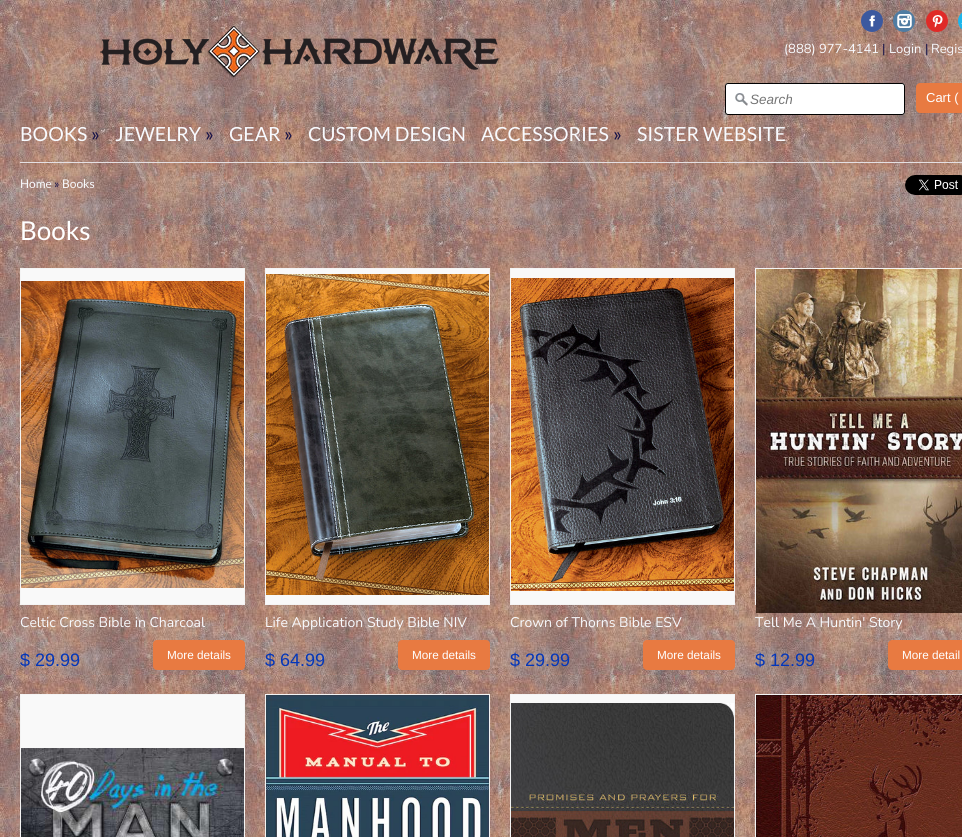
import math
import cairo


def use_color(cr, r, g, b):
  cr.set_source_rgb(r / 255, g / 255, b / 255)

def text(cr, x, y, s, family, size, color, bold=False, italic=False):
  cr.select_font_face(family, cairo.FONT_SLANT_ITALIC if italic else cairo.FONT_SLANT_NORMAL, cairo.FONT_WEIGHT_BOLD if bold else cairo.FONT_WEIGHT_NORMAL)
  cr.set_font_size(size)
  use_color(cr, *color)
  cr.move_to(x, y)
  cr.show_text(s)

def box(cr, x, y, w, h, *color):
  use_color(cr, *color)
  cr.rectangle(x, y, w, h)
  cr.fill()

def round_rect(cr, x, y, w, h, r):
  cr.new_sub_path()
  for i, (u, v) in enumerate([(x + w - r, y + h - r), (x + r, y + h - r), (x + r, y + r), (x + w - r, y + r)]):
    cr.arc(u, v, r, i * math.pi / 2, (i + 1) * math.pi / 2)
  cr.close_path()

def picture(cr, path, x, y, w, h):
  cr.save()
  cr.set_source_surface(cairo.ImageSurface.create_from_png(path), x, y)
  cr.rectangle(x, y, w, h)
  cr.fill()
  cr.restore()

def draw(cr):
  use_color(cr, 255, 255, 255)
  cr.paint()
  picture(cr, "img_01.png", 0, 0, 962, 837)
  use_color(cr, 60, 89, 159)
  cr.arc(872, 21, 11, 0, 2 * math.pi)
  cr.fill()
  picture(cr, "img_02.png", 869, 15, 6, 12)
  use_color(cr, 79, 124, 162)
  cr.arc(904, 21, 11, 0, 2 * math.pi)
  cr.fill()
  picture(cr, "img_03.png", 897, 14, 15, 14)
  use_color(cr, 224, 42, 39)
  cr.arc(937, 21, 11, 0, 2 * math.pi)
  cr.fill()
  picture(cr, "img_04.png", 932, 15, 11, 13)
  use_color(cr, 27, 182, 236)
  cr.new_path()
  cr.move_to(969, 10)
  cr.line_to(962, 10)
  cr.line_to(962, 32)
  cr.line_to(969, 32)
  cr.curve_to(963, 32, 958, 27, 958, 21)
  cr.curve_to(958, 15, 963, 10, 969, 10)
  cr.close_path()
  cr.fill()
  box(cr, 961, 23, 1, 1, 98, 205, 242)
  picture(cr, "img_05.png", 100, 25, 400, 53)
  use_color(cr, 255, 255, 255)
  round_rect(cr, 725, 83, 180, 32, 3)
  cr.fill()
  picture(cr, "img_06.png", 735, 93, 13, 13)
  round_rect(cr, 725.5, 83.5, 179, 31, 2.5)
  use_color(cr, 0, 0, 0)
  cr.set_line_width(1)
  cr.stroke()
  use_color(cr, 232, 122, 65)
  cr.new_path()
  cr.move_to(920, 83)
  cr.line_to(962, 83)
  cr.line_to(962, 113)
  cr.line_to(920, 113)
  cr.curve_to(918, 113, 916, 111, 916, 109)
  cr.line_to(916, 87)
  cr.curve_to(916, 85, 918, 83, 920, 83)
  cr.close_path()
  cr.fill()
  box(cr, 20, 162, 942, 1, 228, 223, 226)
  picture(cr, "img_07.png", 905, 175, 57, 20)
  use_color(cr, 249, 249, 249)
  cr.rectangle(20.5, 268.5, 224, 336)
  cr.fill_preserve()
  use_color(cr, 244, 244, 244)
  cr.stroke()
  picture(cr, "img_08.png", 21, 281, 223, 307)
  use_color(cr, 232, 122, 65)
  round_rect(cr, 153, 640, 92, 30, 4)
  cr.fill()
  use_color(cr, 249, 249, 249)
  cr.rectangle(265.5, 268.5, 224, 336)
  cr.fill_preserve()
  use_color(cr, 244, 244, 244)
  cr.stroke()
  picture(cr, "img_09.png", 266, 274, 223, 321)
  use_color(cr, 232, 122, 65)
  round_rect(cr, 398, 640, 92, 30, 4)
  cr.fill()
  use_color(cr, 249, 249, 249)
  cr.rectangle(510.5, 268.5, 224, 336)
  cr.fill_preserve()
  use_color(cr, 244, 244, 244)
  cr.stroke()
  picture(cr, "img_10.png", 511, 278, 223, 313)
  use_color(cr, 232, 122, 65)
  round_rect(cr, 643, 640, 92, 30, 4)
  cr.fill()
  cr.rectangle(755.5, 268.5, 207, 336)
  use_color(cr, 244, 244, 244)
  cr.stroke()
  picture(cr, "img_11.png", 756, 269, 206, 344)
  use_color(cr, 232, 122, 65)
  cr.new_path()
  cr.move_to(892, 640)
  cr.line_to(962, 640)
  cr.line_to(962, 670)
  cr.line_to(892, 670)
  cr.curve_to(890, 670, 888, 668, 888, 666)
  cr.line_to(888, 644)
  cr.curve_to(888, 642, 890, 640, 892, 640)
  cr.close_path()
  cr.fill()
  box(cr, 21, 695, 223, 53, 249, 249, 249)
  cr.rectangle(20.5, 694.5, 224, 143)
  use_color(cr, 244, 244, 244)
  cr.stroke()
  picture(cr, "img_12.png", 21, 748, 223, 89)
  cr.rectangle(265.5, 694.5, 224, 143)
  cr.stroke()
  picture(cr, "img_13.png", 266, 695, 223, 142)
  box(cr, 511, 695, 223, 8, 249, 249, 249)
  cr.rectangle(510.5, 694.5, 224, 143)
  use_color(cr, 244, 244, 244)
  cr.stroke()
  picture(cr, "img_14.png", 511, 703, 223, 134)
  cr.rectangle(755.5, 694.5, 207, 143)
  cr.stroke()
  picture(cr, "img_15.png", 756, 695, 206, 142)
  text(cr, 784, 53, "(888) 977-4141", "Nunito", 13, (248, 250, 254))
  text(cr, 882, 53, "|", "Nunito", 13, (19, 16, 71))
  text(cr, 889, 53, "Login", "Nunito", 13, (248, 250, 254))
  text(cr, 925, 53, "|", "Nunito", 13, (19, 16, 71))
  text(cr, 931, 53, "Regis", "Nunito", 13, (248, 250, 254))
  text(cr, 750, 104, "Search", "Liberation Sans", 13.5, (117, 117, 117), italic=True)
  text(cr, 926, 102, "Cart (", "Liberation Sans", 13, (255, 255, 255))
  text(cr, 20, 141, "BOOKS", "Lato", 19.5, (248, 250, 254))
  text(cr, 91, 141, "»", "Lato", 19.5, (19, 16, 71))
  text(cr, 115, 141, "JEWELRY", "Lato", 19.5, (248, 250, 254))
  text(cr, 205, 141, "»", "Lato", 19.5, (19, 16, 71))
  text(cr, 229, 141, "GEAR", "Lato", 19.5, (248, 250, 254))
  text(cr, 284, 141, "»", "Lato", 19.5, (19, 16, 71))
  text(cr, 308, 141, "CUSTOM DESIGN", "Lato", 19.5, (248, 250, 254))
  text(cr, 481, 141, "ACCESSORIES", "Lato", 19.5, (248, 250, 254))
  text(cr, 613, 141, "»", "Lato", 19.5, (19, 16, 71))
  text(cr, 637, 141, "SISTER WEBSITE", "Lato", 19.5, (248, 250, 254))
  text(cr, 20, 188, "Home", "Lato", 12, (248, 250, 254))
  text(cr, 54, 188, "»", "Lato", 12, (19, 16, 71))
  text(cr, 62, 188, "Books", "Lato", 12, (248, 250, 254))
  text(cr, 20, 240, "Books", "Lato", 26, (255, 255, 255))
  text(cr, 20, 627, "Celtic Cross Bible in Charcoal", "Nunito", 14, (248, 250, 254))
  text(cr, 20, 666, "$ 29.99", "Liberation Sans", 18, (3, 54, 186))
  text(cr, 167, 659, "More details", "Liberation Sans", 11.75, (255, 255, 255))
  text(cr, 265, 627, "Life Application Study Bible NIV", "Nunito", 14, (248, 250, 254))
  text(cr, 265, 666, "$ 64.99", "Liberation Sans", 18, (3, 54, 186))
  text(cr, 412, 659, "More details", "Liberation Sans", 11.75, (255, 255, 255))
  text(cr, 510, 627, "Crown of Thorns Bible ESV", "Nunito", 14, (248, 250, 254))
  text(cr, 510, 666, "$ 29.99", "Liberation Sans", 18, (3, 54, 186))
  text(cr, 657, 659, "More details", "Liberation Sans", 11.75, (255, 255, 255))
  text(cr, 755, 627, "Tell Me A Huntin' Story", "Nunito", 14, (248, 250, 254))
  text(cr, 755, 666, "$ 12.99", "Liberation Sans", 18, (3, 54, 186))
  text(cr, 902, 659, "More detail", "Liberation Sans", 11.75, (255, 255, 255))


surface = cairo.ImageSurface(cairo.FORMAT_RGB24, 962, 837)
cr = cairo.Context(surface)
options = cairo.FontOptions()
options.set_hint_metrics(cairo.HINT_METRICS_OFF)
options.set_hint_style(cairo.HINT_STYLE_NONE)
cr.set_font_options(options)
cr.set_miter_limit(4)
draw(cr)
surface.write_to_png("out.png")
